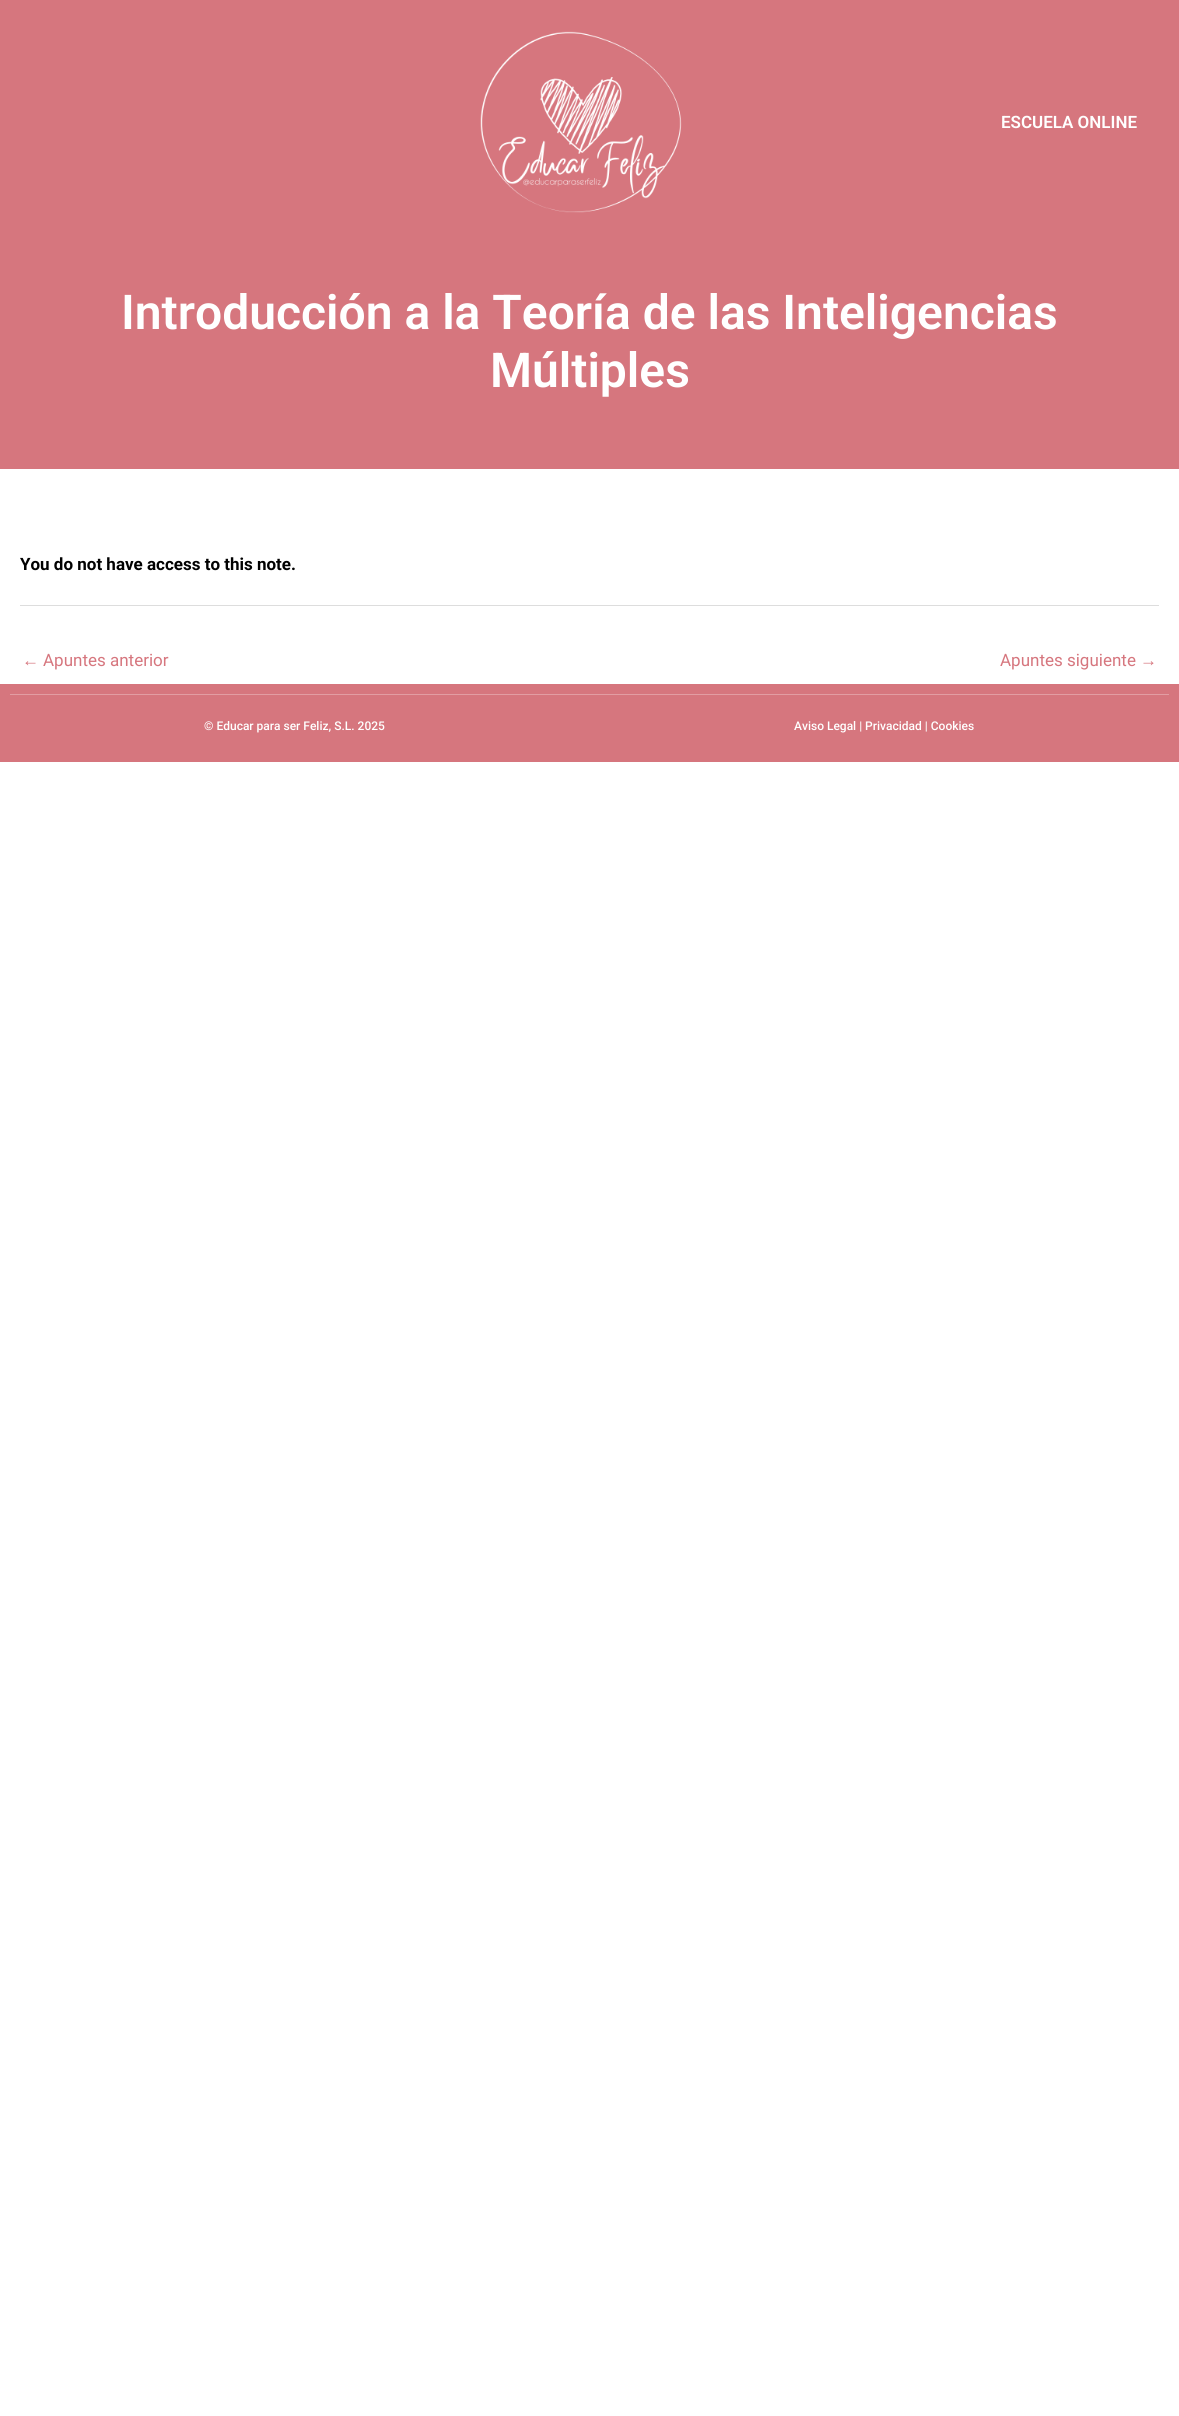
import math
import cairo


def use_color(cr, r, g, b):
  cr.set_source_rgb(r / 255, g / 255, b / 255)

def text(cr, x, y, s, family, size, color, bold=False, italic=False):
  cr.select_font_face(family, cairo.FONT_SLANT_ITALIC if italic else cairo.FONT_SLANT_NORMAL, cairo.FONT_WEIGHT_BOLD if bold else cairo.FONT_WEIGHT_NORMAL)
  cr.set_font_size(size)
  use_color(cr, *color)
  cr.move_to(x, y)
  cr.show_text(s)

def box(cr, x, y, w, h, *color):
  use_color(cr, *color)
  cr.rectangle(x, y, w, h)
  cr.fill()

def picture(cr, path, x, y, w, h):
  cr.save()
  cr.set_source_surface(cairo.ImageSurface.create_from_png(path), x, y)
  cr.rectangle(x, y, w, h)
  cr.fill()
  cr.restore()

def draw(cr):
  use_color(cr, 255, 255, 255)
  cr.paint()
  box(cr, 0, 0, 1179, 469, 214, 118, 126)
  picture(cr, "img_01.png", 480, 31, 202, 182)
  box(cr, 20, 605, 1139, 1, 221, 221, 221)
  box(cr, 0, 684, 1179, 78, 214, 118, 126)
  box(cr, 10, 694, 1159, 1, 226, 157, 163)
  text(cr, 1001, 128, "ESCUELA ONLINE", "Roboto SemiBold", 17, (255, 255, 255))
  text(cr, 121, 329, "Introducción a la Teoría de las Inteligencias", "Roboto SemiBold", 48, (255, 255, 255))
  text(cr, 490, 387, "Múltiples", "Roboto SemiBold", 48, (255, 255, 255))
  text(cr, 20, 570, "You do not have access to this note.", "Roboto", 17, (1, 1, 1), bold=True)
  text(cr, 22, 666, "←", "Liberation Sans", 17, (214, 118, 126))
  text(cr, 43, 666, "Apuntes anterior", "Roboto", 17, (214, 118, 126))
  text(cr, 1000, 666, "Apuntes siguiente", "Roboto", 17, (214, 118, 126))
  text(cr, 1140, 666, "→", "Liberation Sans", 17, (214, 118, 126))
  text(cr, 204, 730, "© Educar para ser Feliz, S.L. 2025", "Roboto Medium", 12, (255, 255, 255))
  text(cr, 794, 730, "Aviso Legal | Privacidad | Cookies", "Roboto Medium", 12, (255, 255, 255))


surface = cairo.ImageSurface(cairo.FORMAT_RGB24, 1179, 2416)
cr = cairo.Context(surface)
options = cairo.FontOptions()
options.set_hint_metrics(cairo.HINT_METRICS_OFF)
options.set_hint_style(cairo.HINT_STYLE_NONE)
cr.set_font_options(options)
cr.set_miter_limit(4)
draw(cr)
surface.write_to_png("out.png")
